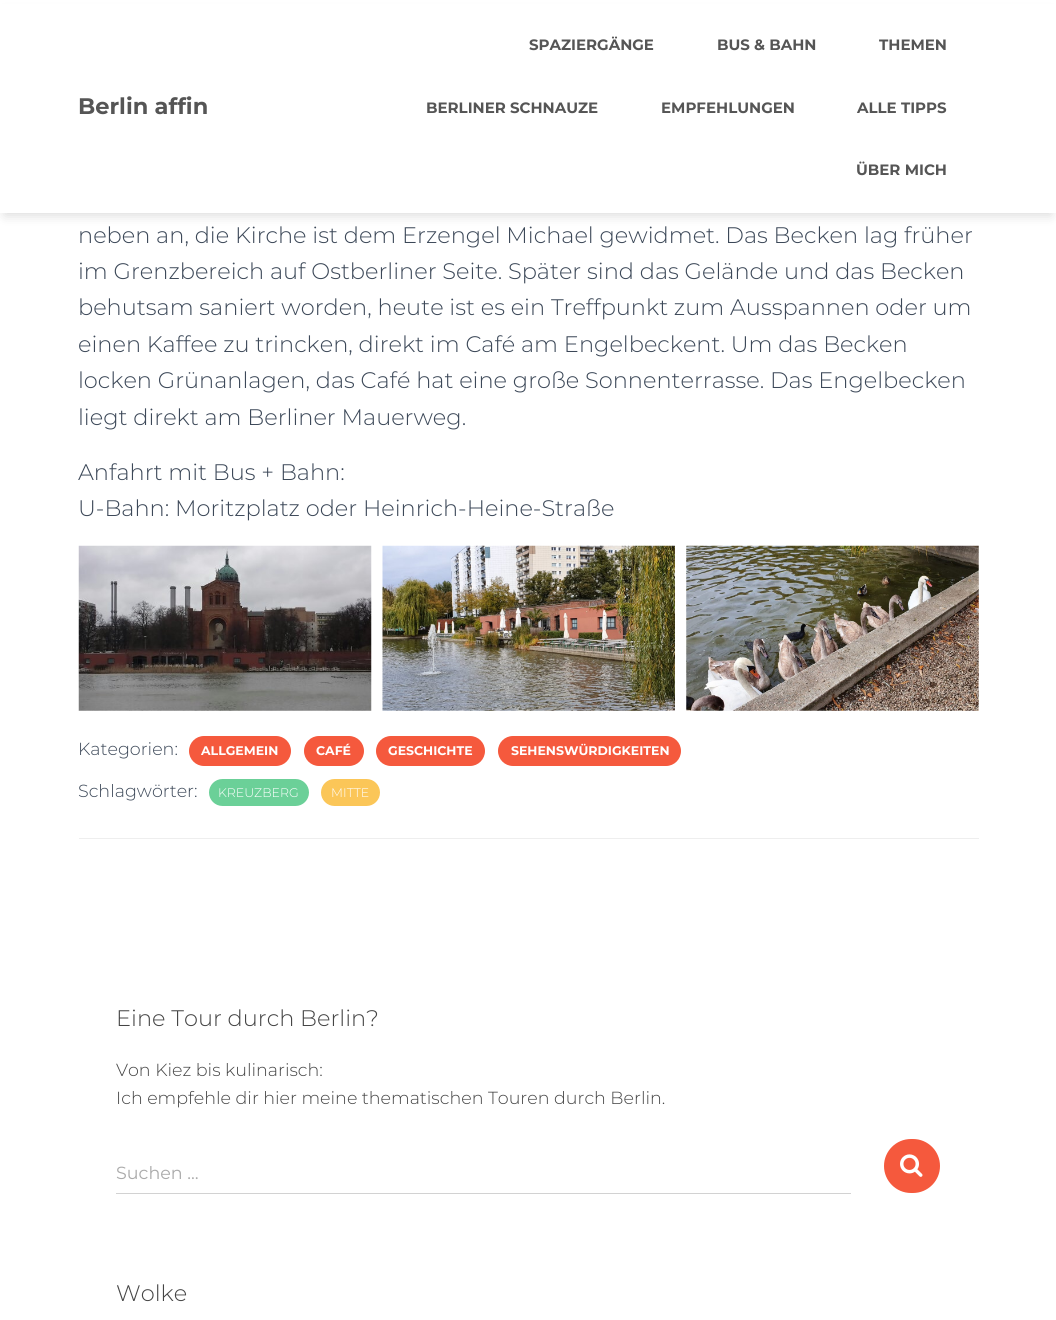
import math
import cairo


def use_color(cr, r, g, b):
  cr.set_source_rgb(r / 255, g / 255, b / 255)

def text(cr, x, y, s, family, size, color, bold=False, italic=False):
  cr.select_font_face(family, cairo.FONT_SLANT_ITALIC if italic else cairo.FONT_SLANT_NORMAL, cairo.FONT_WEIGHT_BOLD if bold else cairo.FONT_WEIGHT_NORMAL)
  cr.set_font_size(size)
  use_color(cr, *color)
  cr.move_to(x, y)
  cr.show_text(s)

def box(cr, x, y, w, h, *color):
  use_color(cr, *color)
  cr.rectangle(x, y, w, h)
  cr.fill()

def round_rect(cr, x, y, w, h, r):
  cr.new_sub_path()
  for i, (u, v) in enumerate([(x + w - r, y + h - r), (x + r, y + h - r), (x + r, y + r), (x + w - r, y + r)]):
    cr.arc(u, v, r, i * math.pi / 2, (i + 1) * math.pi / 2)
  cr.close_path()

def shadow(cr, x, y, w, h, r, blur, alpha):
  cr.push_group_with_content(cairo.CONTENT_ALPHA)
  cr.set_operator(cairo.OPERATOR_SOURCE)
  for i in range(15, -16, -2):
    e = blur * i / 6
    if min(w, h) + 2 * e > 0:
      cr.set_source_rgba(0, 0, 0, alpha * math.erfc((i - 1) / 8.5) / 2)
      round_rect(cr, x - e, y - e, w + 2 * e, h + 2 * e, max(0, min(r + e + blur * .6, min(w, h) / 2 + e)))
      cr.fill()
  cr.mask(cr.pop_group())

def picture(cr, path, x, y, w, h):
  cr.save()
  cr.set_source_surface(cairo.ImageSurface.create_from_png(path), x, y)
  cr.rectangle(x, y, w, h)
  cr.fill()
  cr.restore()

def draw(cr):
  use_color(cr, 255, 255, 255)
  cr.paint()
  use_color(cr, 0, 0, 0)
  shadow(cr, 5, 13, 1046, 202, 0, 6, 0.15)
  box(cr, 0, 4, 1056, 209, 255, 255, 255)
  picture(cr, "img_01.png", 78, 545, 294, 166)
  picture(cr, "img_02.png", 382, 545, 293, 166)
  picture(cr, "img_03.png", 686, 545, 293, 166)
  use_color(cr, 245, 89, 61)
  round_rect(cr, 189, 736, 102, 30, 15)
  cr.fill()
  round_rect(cr, 304, 736, 60, 30, 15)
  cr.fill()
  round_rect(cr, 376, 736, 109, 30, 15)
  cr.fill()
  round_rect(cr, 498, 736, 183, 30, 15)
  cr.fill()
  use_color(cr, 107, 208, 152)
  round_rect(cr, 209, 779, 100, 27, 13.5)
  cr.fill()
  use_color(cr, 251, 198, 88)
  round_rect(cr, 321, 779, 59, 27, 13.5)
  cr.fill()
  box(cr, 79, 838, 900, 1, 238, 238, 238)
  box(cr, 116, 1193, 735, 1, 210, 210, 210)
  use_color(cr, 245, 89, 61)
  round_rect(cr, 884, 1139, 56, 54, 27)
  cr.fill()
  picture(cr, "img_04.png", 900, 1154, 23, 23)
  text(cr, 78, 114, "Berlin affin", "Montserrat", 22.5, (85, 85, 85), bold=True)
  text(cr, 529, 50, "SPAZIERGÄNGE", "Montserrat", 15, (85, 85, 85), bold=True)
  text(cr, 717, 50, "BUS & BAHN", "Montserrat", 15, (85, 85, 85), bold=True)
  text(cr, 879, 50, "THEMEN", "Montserrat", 15, (85, 85, 85), bold=True)
  text(cr, 426, 113, "BERLINER SCHNAUZE", "Montserrat", 15, (85, 85, 85), bold=True)
  text(cr, 661, 113, "EMPFEHLUNGEN", "Montserrat", 15, (85, 85, 85), bold=True)
  text(cr, 857, 113, "ALLE TIPPS", "Montserrat", 15, (85, 85, 85), bold=True)
  text(cr, 856, 175, "ÜBER MICH", "Montserrat", 15, (85, 85, 85), bold=True)
  text(cr, 78, 243, "neben an, die Kirche ist dem Erzengel Michael gewidmet. Das Becken lag früher", "Montserrat Light", 22.5, (60, 72, 88))
  text(cr, 78, 279, "im Grenzbereich auf Ostberliner Seite. Später sind das Gelände und das Becken", "Montserrat Light", 22.5, (60, 72, 88))
  text(cr, 78, 315, "behutsam saniert worden, heute ist es ein Treffpunkt zum Ausspannen oder um", "Montserrat Light", 22.5, (60, 72, 88))
  text(cr, 78, 352, "einen Kaffee zu trincken, direkt im Café am Engelbeckent. Um das Becken", "Montserrat Light", 22.5, (60, 72, 88))
  text(cr, 78, 388, "locken Grünanlagen, das Café hat eine große Sonnenterrasse. Das Engelbecken", "Montserrat Light", 22.5, (60, 72, 88))
  text(cr, 78, 425, "liegt direkt am Berliner Mauerweg.", "Montserrat Light", 22.5, (60, 72, 88))
  text(cr, 78, 480, "Anfahrt mit Bus + Bahn:", "Montserrat Light", 22.5, (60, 72, 88))
  text(cr, 78, 516, "U-Bahn: Moritzplatz oder Heinrich-Heine-Straße", "Montserrat Light", 22.5, (60, 72, 88))
  text(cr, 78, 755, "Kategorien:", "Montserrat Light", 17.5, (60, 72, 88))
  text(cr, 201, 755, "ALLGEMEIN", "Montserrat", 12.5, (255, 255, 255), bold=True)
  text(cr, 316, 755, "CAFÉ", "Montserrat", 12.5, (255, 255, 255), bold=True)
  text(cr, 388, 755, "GESCHICHTE", "Montserrat", 12.5, (255, 255, 255), bold=True)
  text(cr, 511, 755, "SEHENSWÜRDIGKEITEN", "Montserrat", 12.5, (255, 255, 255), bold=True)
  text(cr, 78, 797, "Schlagwörter:", "Montserrat Light", 17.5, (60, 72, 88))
  text(cr, 218, 797, "KREUZBERG", "Montserrat Light", 12.5, (255, 255, 255))
  text(cr, 331, 797, "MITTE", "Montserrat Light", 12.5, (255, 255, 255))
  text(cr, 116, 1026, "Eine Tour durch Berlin?", "Montserrat Light", 22.5, (68, 68, 68))
  text(cr, 116, 1076, "Von Kiez bis kulinarisch:", "Montserrat Light", 17.5, (68, 68, 68))
  text(cr, 116, 1104, "Ich empfehle dir hier meine thematischen Touren durch Berlin.", "Montserrat Light", 17.5, (68, 68, 68))
  text(cr, 116, 1179, "Suchen …", "Montserrat", 17.5, (170, 170, 170))
  text(cr, 116, 1301, "Wolke", "Montserrat Light", 22.5, (68, 68, 68))


surface = cairo.ImageSurface(cairo.FORMAT_RGB24, 1056, 1320)
cr = cairo.Context(surface)
options = cairo.FontOptions()
options.set_hint_metrics(cairo.HINT_METRICS_OFF)
options.set_hint_style(cairo.HINT_STYLE_NONE)
cr.set_font_options(options)
cr.set_miter_limit(4)
draw(cr)
surface.write_to_png("out.png")
